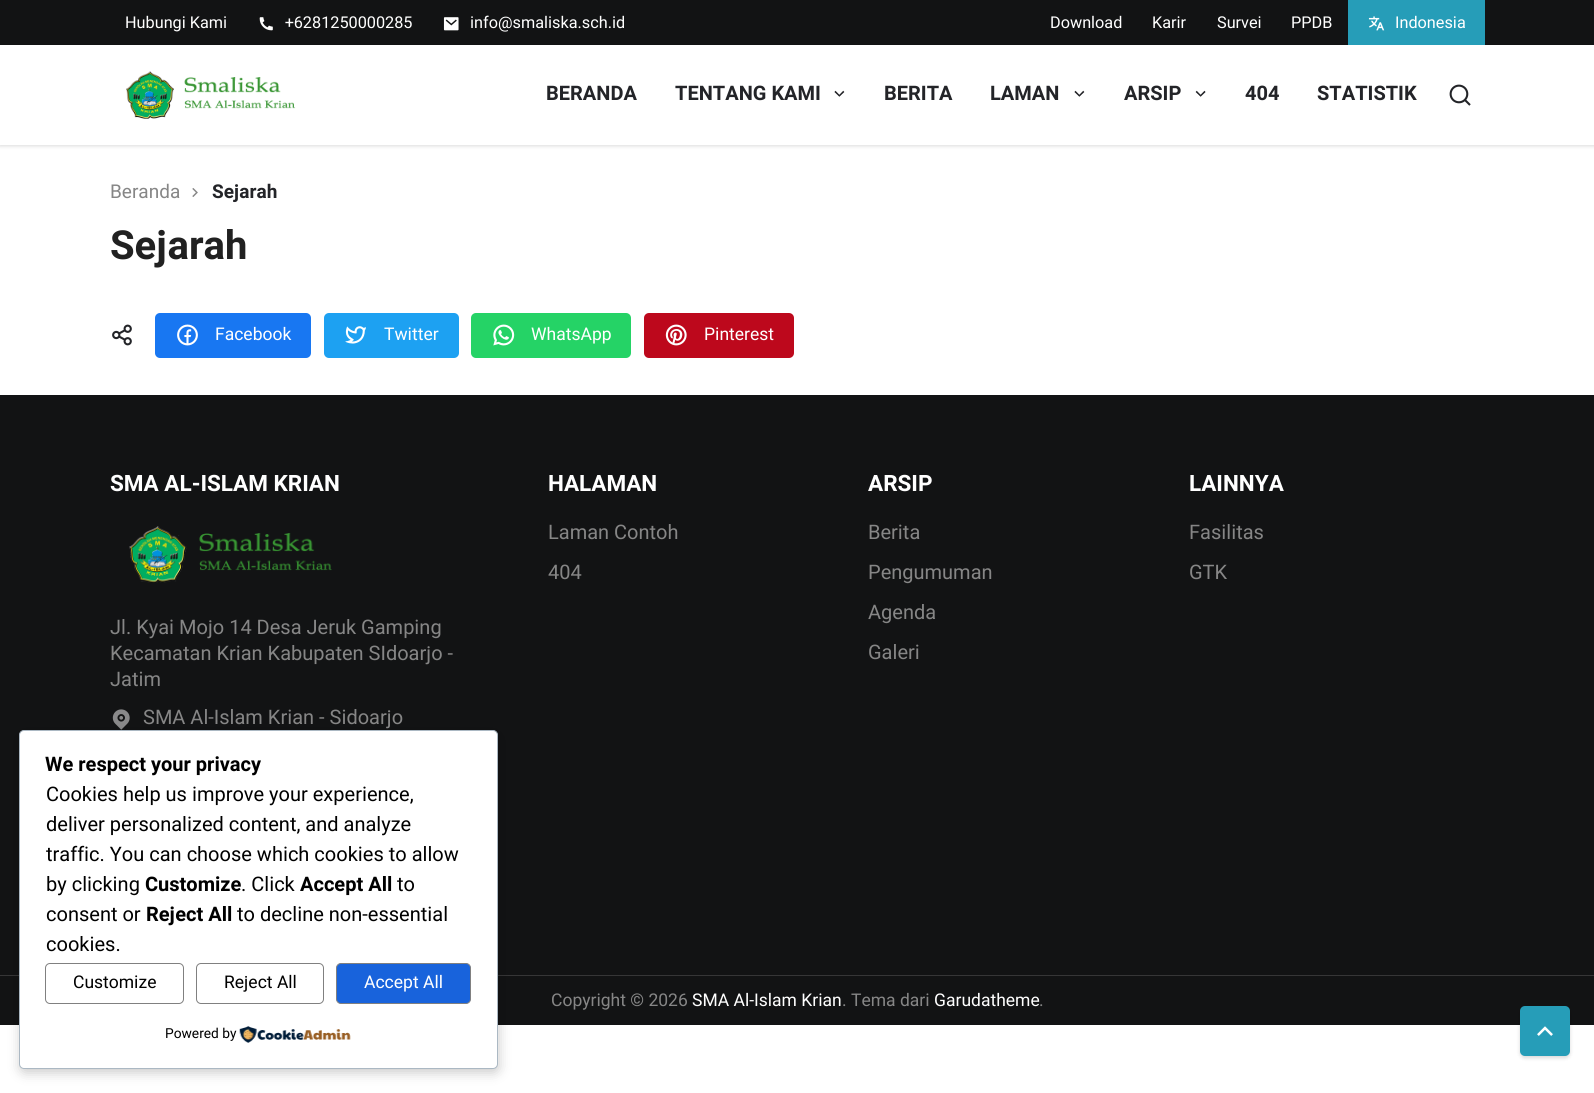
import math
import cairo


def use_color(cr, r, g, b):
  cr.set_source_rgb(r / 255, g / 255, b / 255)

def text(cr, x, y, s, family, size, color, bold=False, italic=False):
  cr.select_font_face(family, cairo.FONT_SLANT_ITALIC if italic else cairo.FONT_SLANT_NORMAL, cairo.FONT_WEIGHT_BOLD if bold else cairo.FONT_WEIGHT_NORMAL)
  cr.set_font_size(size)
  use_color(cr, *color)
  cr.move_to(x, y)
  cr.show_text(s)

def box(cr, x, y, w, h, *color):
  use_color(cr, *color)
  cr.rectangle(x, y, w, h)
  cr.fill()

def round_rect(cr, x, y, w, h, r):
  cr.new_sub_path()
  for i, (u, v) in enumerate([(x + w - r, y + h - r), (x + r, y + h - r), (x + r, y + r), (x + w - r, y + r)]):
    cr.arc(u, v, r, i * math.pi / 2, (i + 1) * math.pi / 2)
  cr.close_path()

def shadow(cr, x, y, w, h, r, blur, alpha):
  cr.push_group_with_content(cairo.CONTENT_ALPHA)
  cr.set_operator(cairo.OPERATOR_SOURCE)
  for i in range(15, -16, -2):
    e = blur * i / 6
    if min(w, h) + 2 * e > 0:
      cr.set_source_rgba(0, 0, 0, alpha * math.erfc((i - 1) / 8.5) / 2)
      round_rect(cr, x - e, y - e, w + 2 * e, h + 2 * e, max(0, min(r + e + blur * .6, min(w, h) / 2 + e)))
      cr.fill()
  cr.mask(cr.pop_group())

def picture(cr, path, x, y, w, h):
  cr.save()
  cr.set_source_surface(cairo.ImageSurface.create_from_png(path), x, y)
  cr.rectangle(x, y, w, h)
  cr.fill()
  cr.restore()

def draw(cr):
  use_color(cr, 255, 255, 255)
  cr.paint()
  box(cr, 0, 0, 1594, 45, 18, 19, 20)
  picture(cr, "img_01.png", 259, 17, 14, 14)
  picture(cr, "img_02.png", 443, 17, 16, 14)
  cr.save()
  cr.set_fill_rule(cairo.FILL_RULE_EVEN_ODD)
  cr.new_path()
  cr.move_to(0, 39)
  cr.line_to(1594, 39)
  cr.line_to(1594, 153)
  cr.line_to(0, 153)
  cr.close_path()
  cr.move_to(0, 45)
  cr.line_to(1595, 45)
  cr.line_to(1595, 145)
  cr.line_to(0, 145)
  cr.close_path()
  cr.clip()
  use_color(cr, 0, 0, 0)
  shadow(cr, 0, 46, 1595, 100, 0, 2, 0.15)
  cr.restore()
  box(cr, 1348, 0, 137, 45, 38, 157, 184)
  picture(cr, "img_03.png", 1368, 16, 17, 15)
  picture(cr, "img_04.png", 126, 71, 170, 48)
  picture(cr, "img_05.png", 834, 90, 11, 7)
  picture(cr, "img_05.png", 1074, 90, 11, 7)
  picture(cr, "img_06.png", 1195, 90, 11, 7)
  picture(cr, "img_07.png", 1449, 84, 22, 22)
  picture(cr, "img_08.png", 192, 188, 6, 9)
  picture(cr, "img_09.png", 112, 324, 20, 22)
  use_color(cr, 24, 119, 242)
  round_rect(cr, 155, 313, 156, 45, 5)
  cr.fill()
  picture(cr, "img_10.png", 177, 324, 21, 22)
  use_color(cr, 29, 161, 242)
  round_rect(cr, 324, 313, 135, 45, 5)
  cr.fill()
  picture(cr, "img_11.png", 345, 326, 21, 18)
  use_color(cr, 37, 211, 102)
  round_rect(cr, 471, 313, 160, 45, 5)
  cr.fill()
  picture(cr, "img_12.png", 493, 324, 22, 22)
  use_color(cr, 189, 8, 28)
  round_rect(cr, 644, 313, 150, 45, 5)
  cr.fill()
  picture(cr, "img_13.png", 665, 324, 22, 22)
  box(cr, 0, 395, 1594, 630, 18, 19, 20)
  picture(cr, "img_14.png", 129, 526, 203, 57)
  picture(cr, "img_15.png", 112, 709, 18, 21)
  box(cr, 0, 975, 1594, 1, 54, 54, 55)
  use_color(cr, 0, 0, 0)
  shadow(cr, 20, 734, 479, 339, 5, 6, 0.2)
  use_color(cr, 255, 255, 255)
  round_rect(cr, 19.5, 730.5, 478, 338, 4.5)
  cr.fill_preserve()
  use_color(cr, 171, 184, 195)
  cr.set_line_width(1)
  cr.stroke()
  round_rect(cr, 45.5, 963.5, 138, 40, 4.5)
  use_color(cr, 128, 128, 128)
  cr.stroke()
  round_rect(cr, 196.5, 963.5, 127, 40, 4.5)
  cr.stroke()
  use_color(cr, 24, 99, 220)
  round_rect(cr, 336.5, 963.5, 134, 40, 4.5)
  cr.fill_preserve()
  use_color(cr, 128, 128, 128)
  cr.stroke()
  picture(cr, "img_16.png", 239, 1026, 112, 17)
  use_color(cr, 0, 0, 0)
  shadow(cr, 1520, 1008, 50, 50, 5, 2, 0.15)
  use_color(cr, 38, 157, 184)
  round_rect(cr, 1520, 1006, 50, 50, 5)
  cr.fill()
  picture(cr, "img_17.png", 1537, 1026, 16, 10)
  text(cr, 125, 28, "Hubungi Kami", "Heebo", 16.25, (255, 255, 255))
  text(cr, 285, 28, "+6281250000285", "Heebo", 16.25, (255, 255, 255))
  text(cr, 470, 28, "info@smaliska.sch.id", "Heebo", 16.25, (255, 255, 255))
  text(cr, 1050, 28, "Download", "Heebo", 16.25, (255, 255, 255))
  text(cr, 1152, 28, "Karir", "Heebo", 16.25, (255, 255, 255))
  text(cr, 1217, 28, "Survei", "Heebo", 16.25, (255, 255, 255))
  text(cr, 1291, 28, "PPDB", "Heebo", 16.25, (255, 255, 255))
  text(cr, 1395, 28, "Indonesia", "Heebo", 16.25, (255, 255, 255))
  text(cr, 546, 100, "BERANDA", "Heebo", 20, (35, 36, 40), bold=True)
  text(cr, 675, 100, "TENTANG KAMI", "Heebo", 20, (35, 36, 40), bold=True)
  text(cr, 884, 100, "BERITA", "Heebo", 20, (35, 36, 40), bold=True)
  text(cr, 990, 100, "LAMAN", "Heebo", 20, (35, 36, 40), bold=True)
  text(cr, 1124, 100, "ARSIP", "Heebo", 20, (35, 36, 40), bold=True)
  text(cr, 1245, 100, "404", "Heebo", 20, (35, 36, 40), bold=True)
  text(cr, 1317, 100, "STATISTIK", "Heebo", 20, (35, 36, 40), bold=True)
  text(cr, 110, 198, "Beranda", "Heebo", 19, (134, 134, 134))
  text(cr, 212, 198, "Sejarah", "Heebo", 19, (35, 36, 40), bold=True)
  text(cr, 110, 259, "Sejarah", "Heebo", 40, (33, 33, 33), bold=True)
  text(cr, 215, 340, "Facebook", "Heebo", 17.5, (255, 255, 255))
  text(cr, 384, 340, "Twitter", "Heebo", 17.5, (255, 255, 255))
  text(cr, 531, 340, "WhatsApp", "Heebo", 17.5, (255, 255, 255))
  text(cr, 704, 340, "Pinterest", "Heebo", 17.5, (255, 255, 255))
  text(cr, 110, 491, "SMA AL-ISLAM KRIAN", "Heebo", 22.5, (255, 255, 255), bold=True)
  text(cr, 110, 634, "Jl. Kyai Mojo 14 Desa Jeruk Gamping", "Heebo", 20, (134, 134, 134))
  text(cr, 110, 660, "Kecamatan Krian Kabupaten SIdoarjo -", "Heebo", 20, (134, 134, 134))
  text(cr, 110, 686, "Jatim", "Heebo", 20, (134, 134, 134))
  text(cr, 143, 724, "SMA Al-Islam Krian - Sidoarjo", "Heebo", 20, (134, 134, 134))
  text(cr, 548, 491, "HALAMAN", "Heebo", 22.5, (255, 255, 255), bold=True)
  text(cr, 548, 539, "Laman Contoh", "Heebo", 20, (134, 134, 134))
  text(cr, 548, 579, "404", "Heebo", 20, (134, 134, 134))
  text(cr, 868, 491, "ARSIP", "Heebo", 22.5, (255, 255, 255), bold=True)
  text(cr, 868, 539, "Berita", "Heebo", 20, (134, 134, 134))
  text(cr, 868, 579, "Pengumuman", "Heebo", 20, (134, 134, 134))
  text(cr, 868, 619, "Agenda", "Heebo", 20, (134, 134, 134))
  text(cr, 868, 659, "Galeri", "Heebo", 20, (134, 134, 134))
  text(cr, 1189, 491, "LAINNYA", "Heebo", 22.5, (255, 255, 255), bold=True)
  text(cr, 1189, 539, "Fasilitas", "Heebo", 20, (134, 134, 134))
  text(cr, 1189, 579, "GTK", "Heebo", 20, (134, 134, 134))
  text(cr, 551, 1006, "Copyright © 2026", "Heebo", 17.5, (134, 134, 134))
  text(cr, 692, 1006, "SMA Al-Islam Krian", "Heebo", 17.5, (255, 255, 255))
  text(cr, 842, 1006, ". Tema dari", "Heebo", 17.5, (134, 134, 134))
  text(cr, 934, 1006, "Garudatheme", "Heebo", 17.5, (255, 255, 255))
  text(cr, 1039, 1006, ".", "Heebo", 17.5, (134, 134, 134))
  text(cr, 45, 771, "We respect your privacy", "Heebo", 20, (0, 0, 0), bold=True)
  text(cr, 46, 801, "Cookies help us improve your experience,", "Heebo", 20, (0, 0, 0))
  text(cr, 46, 831, "deliver personalized content, and analyze", "Heebo", 20, (0, 0, 0))
  text(cr, 46, 861, "traffic. You can choose which cookies to allow", "Heebo", 20, (0, 0, 0))
  text(cr, 46, 891, "by clicking", "Heebo", 20, (0, 0, 0))
  text(cr, 145, 891, "Customize", "Heebo", 20, (0, 0, 0), bold=True)
  text(cr, 241, 891, ". Click", "Heebo", 20, (0, 0, 0))
  text(cr, 300, 891, "Accept All", "Heebo", 20, (0, 0, 0), bold=True)
  text(cr, 397, 891, "to", "Heebo", 20, (0, 0, 0))
  text(cr, 46, 921, "consent or", "Heebo", 20, (0, 0, 0))
  text(cr, 146, 921, "Reject All", "Heebo", 20, (0, 0, 0), bold=True)
  text(cr, 237, 921, "to decline non-essential", "Heebo", 20, (0, 0, 0))
  text(cr, 46, 951, "cookies.", "Heebo", 20, (0, 0, 0))
  text(cr, 73, 988, "Customize", "Heebo", 17.5, (0, 0, 0))
  text(cr, 224, 988, "Reject All", "Heebo", 17.5, (0, 0, 0))
  text(cr, 364, 988, "Accept All", "Heebo", 17.5, (255, 255, 255))
  text(cr, 165, 1038, "Powered by", "Heebo", 13.75, (0, 0, 0))


surface = cairo.ImageSurface(cairo.FORMAT_RGB24, 1594, 1093)
cr = cairo.Context(surface)
options = cairo.FontOptions()
options.set_hint_metrics(cairo.HINT_METRICS_OFF)
options.set_hint_style(cairo.HINT_STYLE_NONE)
cr.set_font_options(options)
cr.set_miter_limit(4)
draw(cr)
surface.write_to_png("out.png")
